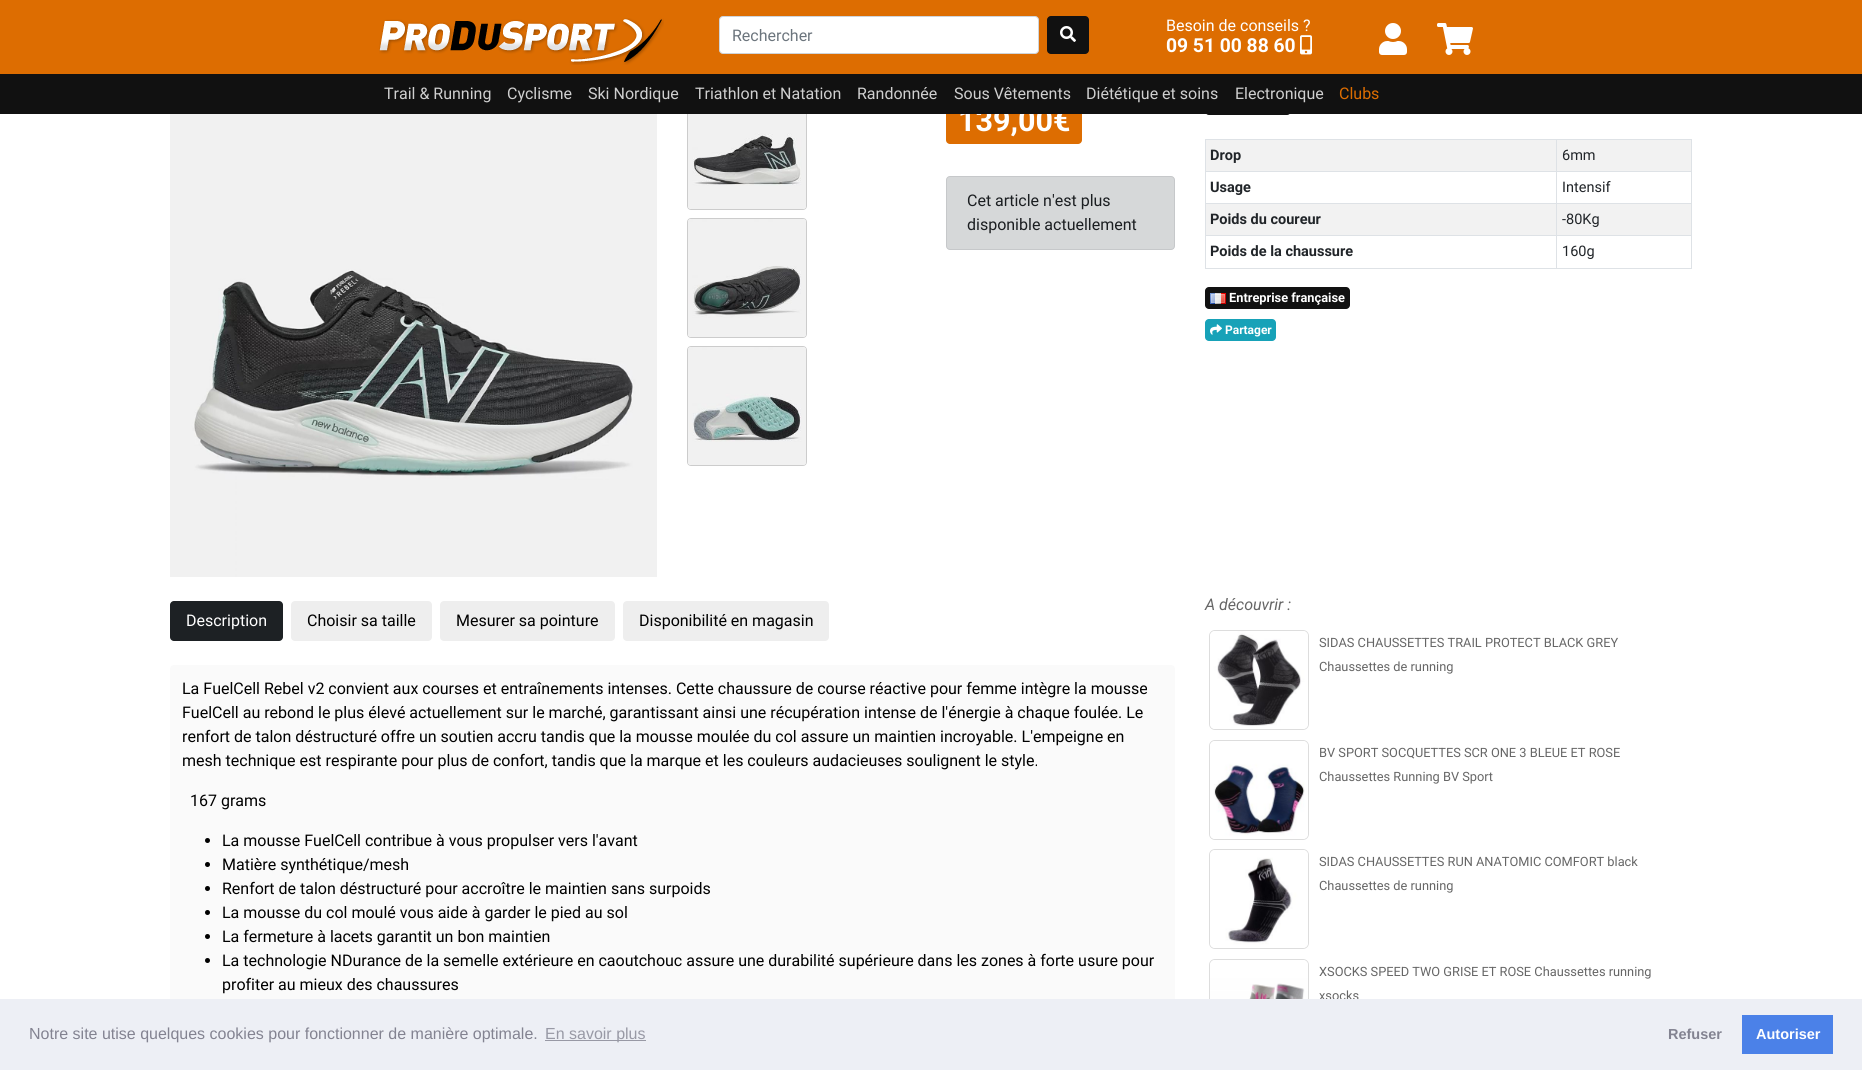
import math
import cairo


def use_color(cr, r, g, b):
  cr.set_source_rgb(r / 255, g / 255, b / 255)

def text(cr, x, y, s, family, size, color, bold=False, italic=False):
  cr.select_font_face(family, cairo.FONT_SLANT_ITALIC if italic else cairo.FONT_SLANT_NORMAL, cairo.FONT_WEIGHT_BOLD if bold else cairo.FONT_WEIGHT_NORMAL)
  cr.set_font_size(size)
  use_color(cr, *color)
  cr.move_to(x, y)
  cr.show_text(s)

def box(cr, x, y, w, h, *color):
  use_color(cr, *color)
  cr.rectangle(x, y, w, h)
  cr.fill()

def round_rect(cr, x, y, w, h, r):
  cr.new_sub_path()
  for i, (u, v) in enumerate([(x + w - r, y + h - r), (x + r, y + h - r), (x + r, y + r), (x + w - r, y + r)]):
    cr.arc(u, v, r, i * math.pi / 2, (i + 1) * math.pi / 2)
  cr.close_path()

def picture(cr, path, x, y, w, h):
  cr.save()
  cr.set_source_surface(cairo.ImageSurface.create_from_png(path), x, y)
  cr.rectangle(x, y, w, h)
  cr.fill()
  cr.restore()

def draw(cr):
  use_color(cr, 255, 255, 255)
  cr.paint()
  box(cr, 0, 0, 1862, 74, 221, 109, 1)
  picture(cr, "img_01.png", 379, 18, 285, 47)
  use_color(cr, 255, 255, 255)
  round_rect(cr, 719.5, 16.5, 319, 37, 3.5)
  cr.fill_preserve()
  use_color(cr, 206, 212, 218)
  cr.set_line_width(1)
  cr.stroke()
  use_color(cr, 17, 17, 17)
  round_rect(cr, 1047, 16, 42, 38, 4)
  cr.fill()
  picture(cr, "img_02.png", 1060, 26, 16, 16)
  picture(cr, "img_03.png", 1300, 35, 12, 20)
  picture(cr, "img_04.png", 1379, 23, 28, 32)
  picture(cr, "img_05.png", 1437, 23, 36, 32)
  picture(cr, "img_06.png", 170, 114, 487, 463)
  round_rect(cr, 687.5, 90.5, 119, 119, 3.5)
  use_color(cr, 204, 204, 204)
  cr.stroke()
  picture(cr, "img_07.png", 688, 114, 118, 95)
  round_rect(cr, 687.5, 218.5, 119, 119, 3.5)
  cr.stroke()
  picture(cr, "img_08.png", 688, 219, 118, 118)
  round_rect(cr, 687.5, 346.5, 119, 119, 3.5)
  cr.stroke()
  picture(cr, "img_09.png", 688, 347, 118, 118)
  use_color(cr, 221, 109, 1)
  round_rect(cr, 946, 98, 136, 46, 4)
  cr.fill()
  use_color(cr, 214, 216, 217)
  round_rect(cr, 946.5, 176.5, 228, 73, 3.5)
  cr.fill_preserve()
  use_color(cr, 198, 200, 202)
  cr.stroke()
  use_color(cr, 17, 17, 17)
  round_rect(cr, 1205, 92, 86, 23, 4)
  cr.fill()
  box(cr, 1205, 139, 487, 1, 222, 226, 230)
  box(cr, 1691, 139, 1, 130, 222, 226, 230)
  box(cr, 1205, 268, 487, 1, 222, 226, 230)
  box(cr, 1205, 139, 1, 130, 222, 226, 230)
  box(cr, 1206, 140, 485, 31, 242, 242, 242)
  box(cr, 1556, 171, 136, 1, 222, 226, 230)
  box(cr, 1556, 203, 136, 1, 222, 226, 230)
  box(cr, 1206, 204, 485, 31, 242, 242, 242)
  box(cr, 1556, 235, 136, 1, 222, 226, 230)
  box(cr, 1556, 235, 1, 34, 222, 226, 230)
  box(cr, 1205, 235, 352, 1, 222, 226, 230)
  box(cr, 1556, 203, 1, 33, 222, 226, 230)
  box(cr, 1205, 203, 352, 1, 222, 226, 230)
  box(cr, 1556, 171, 1, 33, 222, 226, 230)
  box(cr, 1205, 171, 352, 1, 222, 226, 230)
  box(cr, 1556, 139, 1, 33, 222, 226, 230)
  use_color(cr, 17, 17, 17)
  round_rect(cr, 1205, 287, 145, 22, 4)
  cr.fill()
  picture(cr, "img_10.png", 1210, 293, 16, 11)
  use_color(cr, 23, 162, 184)
  round_rect(cr, 1205, 319, 71, 22, 4)
  cr.fill()
  picture(cr, "img_11.png", 1210, 324, 12, 11)
  use_color(cr, 29, 33, 36)
  round_rect(cr, 170, 601, 113, 40, 4)
  cr.fill()
  use_color(cr, 238, 238, 238)
  round_rect(cr, 291, 601, 141, 40, 4)
  cr.fill()
  round_rect(cr, 440, 601, 175, 40, 4)
  cr.fill()
  round_rect(cr, 623, 601, 206, 40, 4)
  cr.fill()
  use_color(cr, 250, 250, 250)
  round_rect(cr, 170, 665, 1005, 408, 4)
  cr.fill()
  use_color(cr, 0, 0, 0)
  cr.arc(207.5, 840.5, 2.5, 0, 2 * math.pi)
  cr.fill()
  cr.arc(207.5, 864.5, 2.5, 0, 2 * math.pi)
  cr.fill()
  cr.arc(207.5, 888.5, 2.5, 0, 2 * math.pi)
  cr.fill()
  cr.arc(207.5, 912.5, 2.5, 0, 2 * math.pi)
  cr.fill()
  cr.arc(207.5, 936.5, 2.5, 0, 2 * math.pi)
  cr.fill()
  cr.arc(207.5, 960.5, 2.5, 0, 2 * math.pi)
  cr.fill()
  round_rect(cr, 1209.5, 630.5, 99, 99, 5.5)
  use_color(cr, 221, 221, 221)
  cr.stroke()
  picture(cr, "img_12.png", 1210, 631, 98, 98)
  round_rect(cr, 1209.5, 740.5, 99, 99, 5.5)
  cr.stroke()
  picture(cr, "img_13.png", 1210, 741, 98, 98)
  round_rect(cr, 1209.5, 849.5, 99, 99, 5.5)
  cr.stroke()
  picture(cr, "img_14.png", 1210, 850, 98, 98)
  round_rect(cr, 1209.5, 959.5, 99, 99, 5.5)
  cr.stroke()
  picture(cr, "img_15.png", 1210, 960, 98, 39)
  text(cr, 732, 41, "Rechercher", "Roboto", 16, (108, 117, 125))
  text(cr, 1166, 31, "Besoin de conseils ?", "Roboto", 16, (255, 255, 255))
  text(cr, 1166, 52, "09 51 00 88 60", "Roboto", 19.25, (255, 255, 255), bold=True)
  text(cr, 958, 131, "139,00€", "Roboto", 30.5, (255, 255, 255), bold=True)
  box(cr, 0, 74, 1862, 40, 17, 17, 17)
  text(cr, 1339, 99, "Clubs", "Roboto", 16, (221, 109, 1))
  text(cr, 1235, 99, "Electronique", "Roboto", 16, (207, 207, 207))
  text(cr, 1086, 99, "Diététique et soins", "Roboto", 16, (207, 207, 207))
  text(cr, 954, 99, "Sous Vêtements", "Roboto", 16, (207, 207, 207))
  text(cr, 857, 99, "Randonnée", "Roboto", 16, (207, 207, 207))
  text(cr, 695, 99, "Triathlon et Natation", "Roboto", 16, (207, 207, 207))
  text(cr, 588, 99, "Ski Nordique", "Roboto", 16, (207, 207, 207))
  text(cr, 507, 99, "Cyclisme", "Roboto", 16, (207, 207, 207))
  text(cr, 384, 99, "Trail & Running", "Roboto", 16, (207, 207, 207))
  text(cr, 967, 206, "Cet article n'est plus", "Roboto", 16, (27, 30, 33))
  text(cr, 967, 230, "disponible actuellement", "Roboto", 16, (27, 30, 33))
  text(cr, 1210, 160, "Drop", "Roboto", 14.5, (33, 37, 41), bold=True)
  text(cr, 1562, 160, "6mm", "Roboto", 14.5, (33, 37, 41))
  text(cr, 1210, 192, "Usage", "Roboto", 14.5, (33, 37, 41), bold=True)
  text(cr, 1562, 192, "Intensif", "Roboto", 14.5, (33, 37, 41))
  text(cr, 1210, 224, "Poids du coureur", "Roboto", 14.5, (33, 37, 41), bold=True)
  text(cr, 1562, 224, "-80Kg", "Roboto", 14.5, (33, 37, 41))
  text(cr, 1210, 256, "Poids de la chaussure", "Roboto", 14.5, (33, 37, 41), bold=True)
  text(cr, 1562, 256, "160g", "Roboto", 14.5, (33, 37, 41))
  text(cr, 1229, 302, "Entreprise française", "Roboto", 12.8, (255, 255, 255), bold=True)
  text(cr, 1225, 334, "Partager", "Roboto", 12, (255, 255, 255), bold=True)
  text(cr, 186, 626, "Description", "Roboto", 16, (255, 255, 255))
  text(cr, 307, 626, "Choisir sa taille", "Roboto", 16, (0, 0, 0))
  text(cr, 456, 626, "Mesurer sa pointure", "Roboto", 16, (0, 0, 0))
  text(cr, 639, 626, "Disponibilité en magasin", "Roboto", 16, (0, 0, 0))
  text(cr, 182, 694, "La FuelCell Rebel v2 convient aux courses et entraînements intenses. Cette chaussure de course réactive pour femme intègre la mousse", "Roboto", 16, (0, 0, 0))
  text(cr, 182, 718, "FuelCell au rebond le plus élevé actuellement sur le marché, garantissant ainsi une récupération intense de l'énergie à chaque foulée. Le", "Roboto", 16, (0, 0, 0))
  text(cr, 182, 742, "renfort de talon déstructuré offre un soutien accru tandis que la mousse moulée du col assure un maintien incroyable. L'empeigne en", "Roboto", 16, (0, 0, 0))
  text(cr, 182, 766, "mesh technique est respirante pour plus de confort, tandis que la marque et les couleurs audacieuses soulignent le style.", "Roboto", 16, (0, 0, 0))
  text(cr, 190, 806, "167 grams", "Roboto", 16, (0, 0, 0))
  text(cr, 222, 846, "La mousse FuelCell contribue à vous propulser vers l'avant", "Roboto", 16, (0, 0, 0))
  text(cr, 222, 870, "Matière synthétique/mesh", "Roboto", 16, (0, 0, 0))
  text(cr, 222, 894, "Renfort de talon déstructuré pour accroître le maintien sans surpoids", "Roboto", 16, (0, 0, 0))
  text(cr, 222, 918, "La mousse du col moulé vous aide à garder le pied au sol", "Roboto", 16, (0, 0, 0))
  text(cr, 222, 942, "La fermeture à lacets garantit un bon maintien", "Roboto", 16, (0, 0, 0))
  text(cr, 222, 966, "La technologie NDurance de la semelle extérieure en caoutchouc assure une durabilité supérieure dans les zones à forte usure pour", "Roboto", 16, (0, 0, 0))
  text(cr, 222, 990, "profiter au mieux des chaussures", "Roboto", 16, (0, 0, 0))
  text(cr, 1205, 610, "A découvrir :", "Roboto", 16, (102, 102, 102), italic=True)
  text(cr, 1319, 647, "SIDAS CHAUSSETTES TRAIL PROTECT BLACK GREY", "Roboto", 12.8, (102, 102, 102))
  text(cr, 1319, 671, "Chaussettes de running", "Roboto", 12.8, (102, 102, 102))
  text(cr, 1319, 757, "BV SPORT SOCQUETTES SCR ONE 3 BLEUE ET ROSE", "Roboto", 12.8, (102, 102, 102))
  text(cr, 1319, 781, "Chaussettes Running BV Sport", "Roboto", 12.8, (102, 102, 102))
  text(cr, 1319, 866, "SIDAS CHAUSSETTES RUN ANATOMIC COMFORT black", "Roboto", 12.8, (102, 102, 102))
  text(cr, 1319, 890, "Chaussettes de running", "Roboto", 12.8, (102, 102, 102))
  text(cr, 1319, 976, "XSOCKS SPEED TWO GRISE ET ROSE Chaussettes running", "Roboto", 12.8, (102, 102, 102))
  text(cr, 1319, 1000, "xsocks", "Roboto", 12.8, (102, 102, 102))
  box(cr, 0, 999, 1862, 71, 237, 239, 245)
  text(cr, 29, 1039, "Notre site utise quelques cookies pour fonctionner de manière optimale.", "Liberation Sans", 16, (131, 131, 145))
  box(cr, 545, 1040, 101, 1, 152, 153, 165)
  text(cr, 545, 1039, "En savoir plus", "Liberation Sans", 16, (152, 153, 165))
  text(cr, 1668, 1039, "Refuser", "Liberation Sans", 14.5, (131, 131, 145), bold=True)
  box(cr, 1742, 1015, 91, 39, 75, 129, 232)
  text(cr, 1756, 1039, "Autoriser", "Liberation Sans", 14.5, (255, 255, 255), bold=True)


surface = cairo.ImageSurface(cairo.FORMAT_RGB24, 1862, 1070)
cr = cairo.Context(surface)
options = cairo.FontOptions()
options.set_hint_metrics(cairo.HINT_METRICS_OFF)
options.set_hint_style(cairo.HINT_STYLE_NONE)
cr.set_font_options(options)
cr.set_miter_limit(4)
draw(cr)
surface.write_to_png("out.png")
